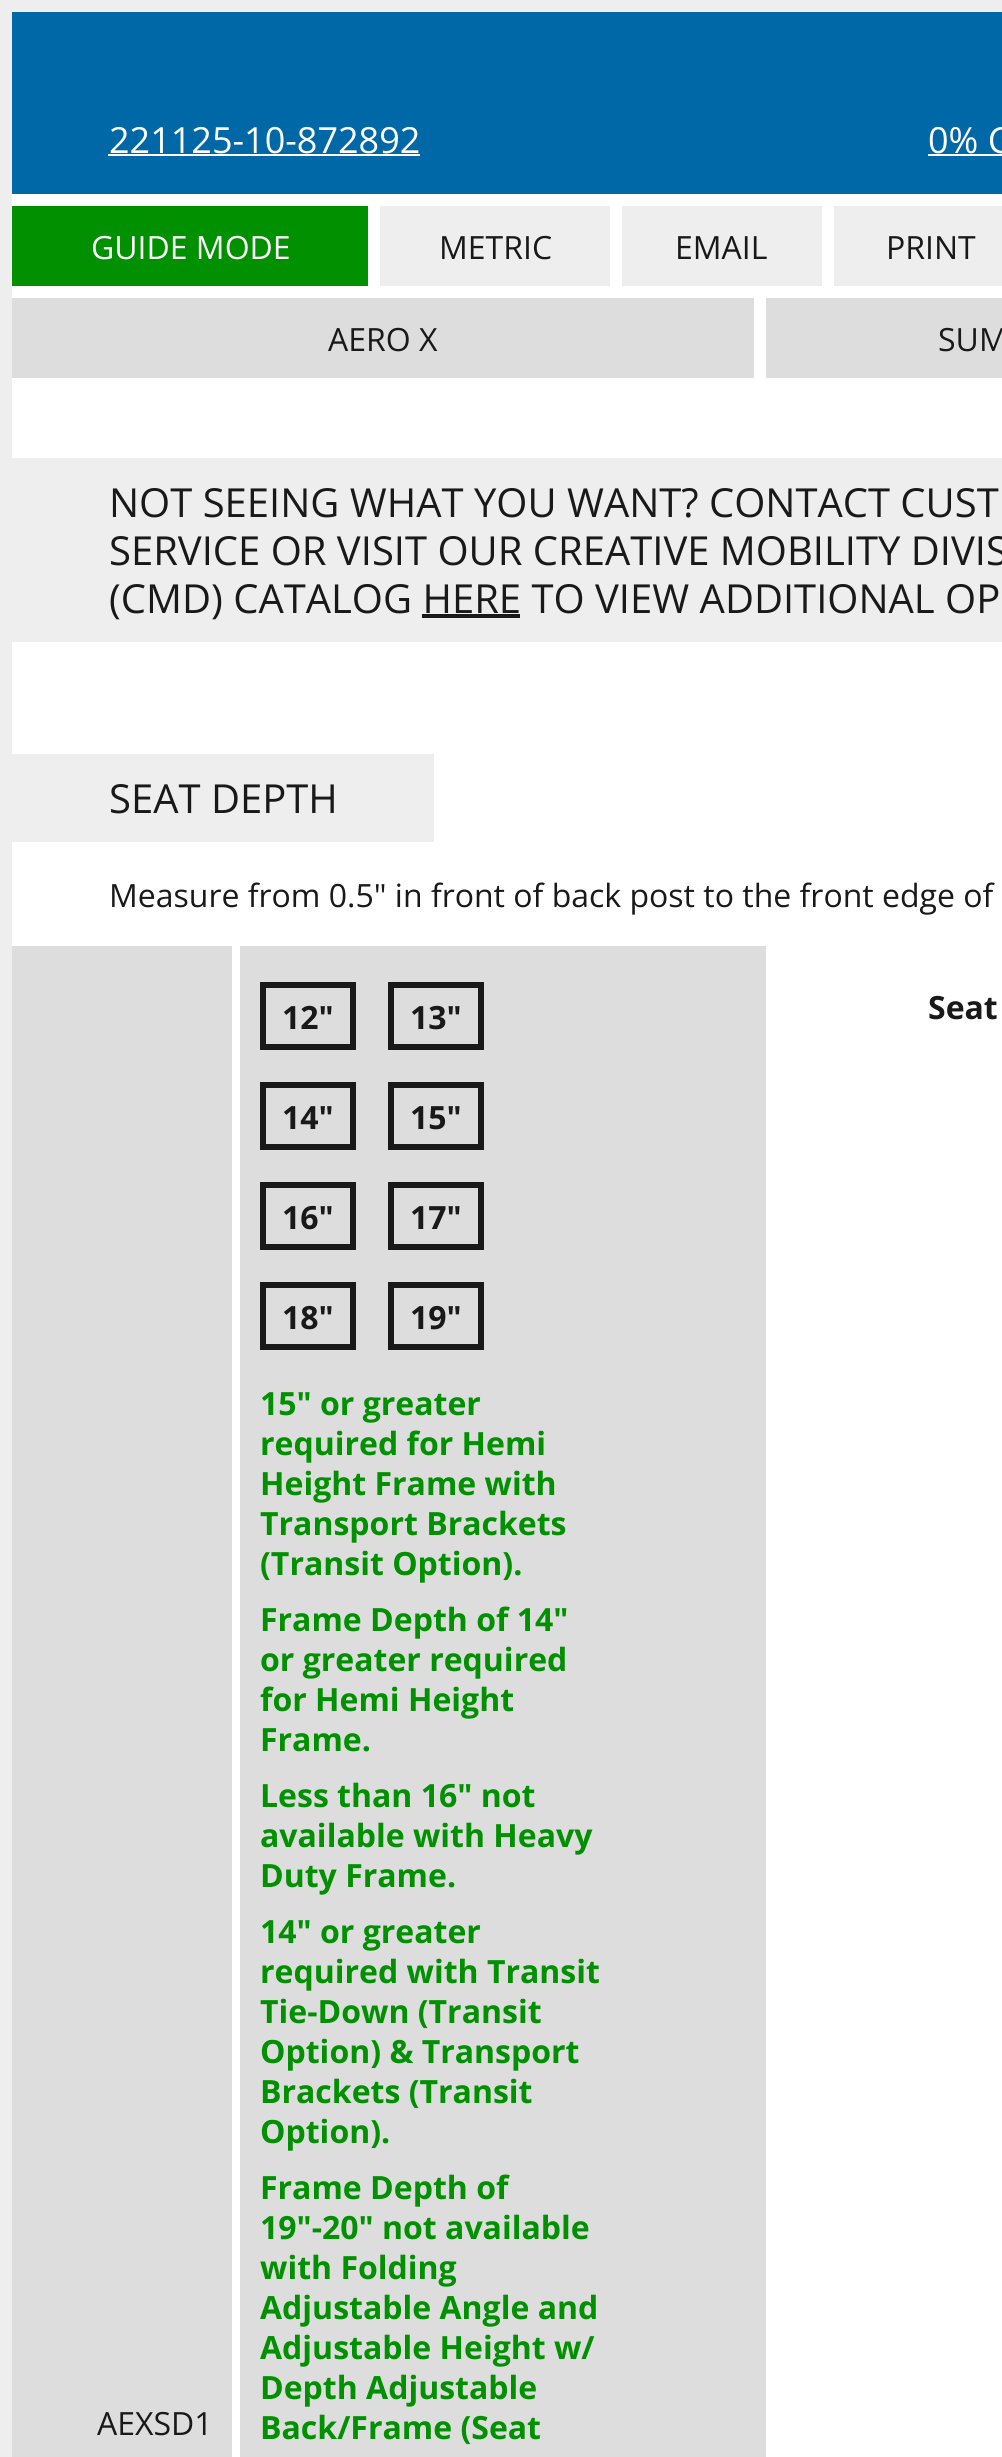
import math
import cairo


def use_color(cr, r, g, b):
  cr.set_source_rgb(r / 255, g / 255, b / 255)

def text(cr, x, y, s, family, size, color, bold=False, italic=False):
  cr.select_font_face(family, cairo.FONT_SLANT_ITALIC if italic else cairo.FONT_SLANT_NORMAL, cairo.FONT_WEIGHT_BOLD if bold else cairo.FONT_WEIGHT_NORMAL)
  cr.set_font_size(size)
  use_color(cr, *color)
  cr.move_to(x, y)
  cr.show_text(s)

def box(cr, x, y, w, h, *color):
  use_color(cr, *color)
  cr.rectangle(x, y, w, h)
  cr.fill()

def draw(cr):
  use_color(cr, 238, 238, 238)
  cr.paint()
  box(cr, 12, 194, 990, 2263, 255, 255, 255)
  box(cr, 12, 12, 990, 182, 0, 104, 166)
  box(cr, 108, 154, 312, 2, 255, 255, 255)
  box(cr, 928, 154, 74, 2, 255, 255, 255)
  box(cr, 380, 206, 622, 80, 238, 238, 238)
  box(cr, 12, 206, 356, 80, 0, 144, 0)
  box(cr, 610, 206, 12, 80, 255, 255, 255)
  box(cr, 822, 206, 12, 80, 255, 255, 255)
  box(cr, 12, 298, 990, 80, 221, 221, 221)
  box(cr, 754, 298, 12, 80, 255, 255, 255)
  box(cr, 12, 458, 990, 184, 238, 238, 238)
  box(cr, 422, 614, 98, 4, 25, 25, 25)
  box(cr, 12, 754, 422, 88, 238, 238, 238)
  box(cr, 12, 946, 754, 1511, 221, 221, 221)
  box(cr, 232, 946, 8, 1511, 255, 255, 255)
  cr.rectangle(263, 985, 90, 62)
  use_color(cr, 25, 25, 25)
  cr.set_line_width(6)
  cr.stroke()
  cr.rectangle(391, 985, 90, 62)
  cr.stroke()
  cr.rectangle(263, 1085, 90, 62)
  cr.stroke()
  cr.rectangle(391, 1085, 90, 62)
  cr.stroke()
  cr.rectangle(263, 1185, 90, 62)
  cr.stroke()
  cr.rectangle(391, 1185, 90, 62)
  cr.stroke()
  cr.rectangle(263, 1285, 90, 62)
  cr.stroke()
  cr.rectangle(391, 1285, 90, 62)
  cr.stroke()
  text(cr, 109, 153, "221125-10-872892", "Open Sans", 36, (255, 255, 255))
  text(cr, 928, 153, "0% C", "Open Sans", 36, (255, 255, 255))
  text(cr, 91, 259, "GUIDE MODE", "Open Sans", 32, (255, 255, 255))
  text(cr, 439, 259, "METRIC", "Open Sans", 32, (25, 25, 25))
  text(cr, 675, 259, "EMAIL", "Open Sans", 32, (25, 25, 25))
  text(cr, 886, 259, "PRINT", "Open Sans", 32, (25, 25, 25))
  text(cr, 328, 351, "AERO X", "Open Sans", 32, (25, 25, 25))
  text(cr, 938, 351, "SUM", "Open Sans", 32, (25, 25, 25))
  text(cr, 109, 517, "NOT SEEING WHAT YOU WANT? CONTACT CUST", "Open Sans", 40, (25, 25, 25))
  text(cr, 109, 565, "SERVICE OR VISIT OUR CREATIVE MOBILITY DIVIS", "Open Sans", 40, (25, 25, 25))
  text(cr, 109, 613, "(CMD) CATALOG HERE TO VIEW ADDITIONAL OP", "Open Sans", 40, (25, 25, 25))
  text(cr, 109, 813, "SEAT DEPTH", "Open Sans", 40, (25, 25, 25))
  text(cr, 109, 907, "Measure from 0.5\" in front of back post to the front edge of", "Open Sans", 32, (25, 25, 25))
  text(cr, 97, 2435, "AEXSD1", "Open Sans", 32, (25, 25, 25))
  text(cr, 282, 1029, "12\"", "Open Sans", 32, (25, 25, 25), bold=True)
  text(cr, 410, 1029, "13\"", "Open Sans", 32, (25, 25, 25), bold=True)
  text(cr, 282, 1129, "14\"", "Open Sans", 32, (25, 25, 25), bold=True)
  text(cr, 410, 1129, "15\"", "Open Sans", 32, (25, 25, 25), bold=True)
  text(cr, 282, 1229, "16\"", "Open Sans", 32, (25, 25, 25), bold=True)
  text(cr, 410, 1229, "17\"", "Open Sans", 32, (25, 25, 25), bold=True)
  text(cr, 282, 1329, "18\"", "Open Sans", 32, (25, 25, 25), bold=True)
  text(cr, 410, 1329, "19\"", "Open Sans", 32, (25, 25, 25), bold=True)
  text(cr, 260, 1415, "15\" or greater", "Open Sans", 32, (0, 144, 0), bold=True)
  text(cr, 260, 1455, "required for Hemi", "Open Sans", 32, (0, 144, 0), bold=True)
  text(cr, 260, 1495, "Height Frame with", "Open Sans", 32, (0, 144, 0), bold=True)
  text(cr, 260, 1535, "Transport Brackets", "Open Sans", 32, (0, 144, 0), bold=True)
  text(cr, 260, 1575, "(Transit Option).", "Open Sans", 32, (0, 144, 0), bold=True)
  text(cr, 260, 1631, "Frame Depth of 14\"", "Open Sans", 32, (0, 144, 0), bold=True)
  text(cr, 260, 1671, "or greater required", "Open Sans", 32, (0, 144, 0), bold=True)
  text(cr, 260, 1711, "for Hemi Height", "Open Sans", 32, (0, 144, 0), bold=True)
  text(cr, 260, 1751, "Frame.", "Open Sans", 32, (0, 144, 0), bold=True)
  text(cr, 260, 1807, "Less than 16\" not", "Open Sans", 32, (0, 144, 0), bold=True)
  text(cr, 260, 1847, "available with Heavy", "Open Sans", 32, (0, 144, 0), bold=True)
  text(cr, 260, 1887, "Duty Frame.", "Open Sans", 32, (0, 144, 0), bold=True)
  text(cr, 260, 1943, "14\" or greater", "Open Sans", 32, (0, 144, 0), bold=True)
  text(cr, 260, 1983, "required with Transit", "Open Sans", 32, (0, 144, 0), bold=True)
  text(cr, 260, 2023, "Tie-Down (Transit", "Open Sans", 32, (0, 144, 0), bold=True)
  text(cr, 260, 2063, "Option) & Transport", "Open Sans", 32, (0, 144, 0), bold=True)
  text(cr, 260, 2103, "Brackets (Transit", "Open Sans", 32, (0, 144, 0), bold=True)
  text(cr, 260, 2143, "Option).", "Open Sans", 32, (0, 144, 0), bold=True)
  text(cr, 260, 2199, "Frame Depth of", "Open Sans", 32, (0, 144, 0), bold=True)
  text(cr, 260, 2239, "19\"-20\" not available", "Open Sans", 32, (0, 144, 0), bold=True)
  text(cr, 260, 2279, "with Folding", "Open Sans", 32, (0, 144, 0), bold=True)
  text(cr, 260, 2319, "Adjustable Angle and", "Open Sans", 32, (0, 144, 0), bold=True)
  text(cr, 260, 2359, "Adjustable Height w/", "Open Sans", 32, (0, 144, 0), bold=True)
  text(cr, 260, 2399, "Depth Adjustable", "Open Sans", 32, (0, 144, 0), bold=True)
  text(cr, 260, 2439, "Back/Frame (Seat", "Open Sans", 32, (0, 144, 0), bold=True)
  text(cr, 928, 1019, "Seat", "Open Sans", 32, (25, 25, 25), bold=True)


surface = cairo.ImageSurface(cairo.FORMAT_RGB24, 1002, 2457)
cr = cairo.Context(surface)
options = cairo.FontOptions()
options.set_hint_metrics(cairo.HINT_METRICS_OFF)
options.set_hint_style(cairo.HINT_STYLE_NONE)
cr.set_font_options(options)
cr.set_miter_limit(4)
draw(cr)
surface.write_to_png("out.png")
